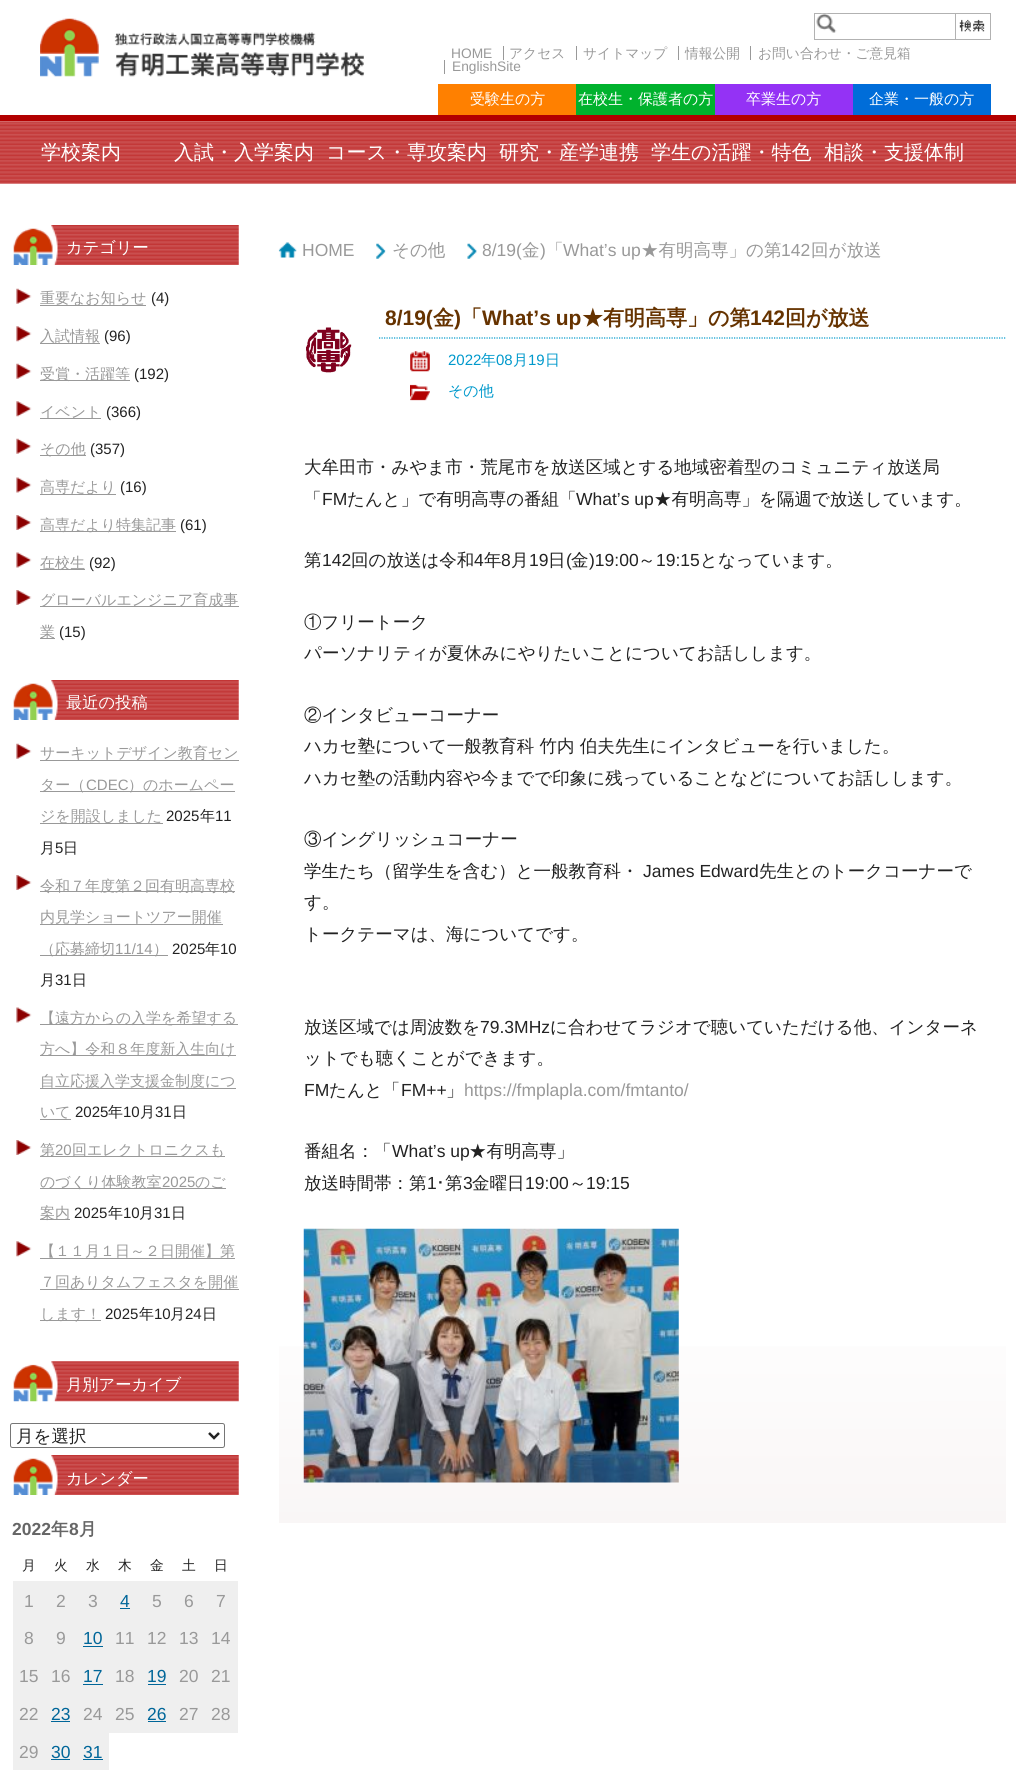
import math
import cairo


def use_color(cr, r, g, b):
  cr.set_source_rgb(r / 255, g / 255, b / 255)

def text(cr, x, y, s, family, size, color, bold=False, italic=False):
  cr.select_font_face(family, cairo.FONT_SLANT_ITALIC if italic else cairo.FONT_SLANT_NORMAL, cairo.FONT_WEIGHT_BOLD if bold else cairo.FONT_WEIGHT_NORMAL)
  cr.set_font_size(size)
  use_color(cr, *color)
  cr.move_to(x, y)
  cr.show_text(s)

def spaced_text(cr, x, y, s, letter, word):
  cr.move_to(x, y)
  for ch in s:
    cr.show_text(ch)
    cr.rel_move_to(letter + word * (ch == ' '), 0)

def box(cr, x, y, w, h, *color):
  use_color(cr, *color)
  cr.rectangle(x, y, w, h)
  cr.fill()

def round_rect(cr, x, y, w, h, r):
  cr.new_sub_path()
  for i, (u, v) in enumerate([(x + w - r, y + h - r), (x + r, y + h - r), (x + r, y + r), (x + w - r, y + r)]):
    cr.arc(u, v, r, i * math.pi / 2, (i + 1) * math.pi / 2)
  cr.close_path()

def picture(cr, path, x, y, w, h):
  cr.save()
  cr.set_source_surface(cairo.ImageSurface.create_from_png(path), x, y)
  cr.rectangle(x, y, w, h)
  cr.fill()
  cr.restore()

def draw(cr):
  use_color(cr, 255, 255, 255)
  cr.paint()
  box(cr, 0, 115, 1016, 6, 178, 0, 0)
  picture(cr, "img_01.png", 40, 18, 325, 59)
  cr.rectangle(814.5, 13.5, 176, 26)
  use_color(cr, 178, 178, 178)
  cr.set_line_width(1)
  cr.stroke()
  picture(cr, "img_02.png", 816, 13, 21, 20)
  box(cr, 955, 14, 1, 25, 178, 178, 178)
  picture(cr, "img_03.png", 959, 19, 26, 13)
  box(cr, 503, 46, 1, 14, 153, 153, 153)
  box(cr, 576, 46, 1, 14, 153, 153, 153)
  box(cr, 678, 46, 1, 14, 153, 153, 153)
  box(cr, 750, 46, 1, 14, 153, 153, 153)
  box(cr, 444, 60, 1, 14, 153, 153, 153)
  box(cr, 438, 84, 138, 31, 255, 128, 0)
  box(cr, 576, 84, 139, 31, 0, 178, 45)
  box(cr, 715, 84, 138, 31, 148, 50, 245)
  box(cr, 853, 84, 138, 31, 0, 109, 217)
  picture(cr, "img_04.png", 0, 121, 1016, 63)
  picture(cr, "img_05.png", 13, 225, 226, 40)
  picture(cr, "img_06.png", 16, 288, 16, 16)
  box(cr, 40, 305, 106, 1, 153, 153, 153)
  picture(cr, "img_07.png", 16, 326, 16, 16)
  box(cr, 40, 343, 60, 1, 153, 153, 153)
  picture(cr, "img_08.png", 16, 363, 16, 16)
  box(cr, 40, 380, 90, 1, 153, 153, 153)
  picture(cr, "img_07.png", 16, 401, 16, 16)
  box(cr, 40, 418, 61, 1, 153, 153, 153)
  picture(cr, "img_08.png", 16, 438, 16, 16)
  box(cr, 40, 455, 46, 1, 153, 153, 153)
  picture(cr, "img_09.png", 16, 477, 16, 16)
  box(cr, 40, 494, 76, 1, 153, 153, 153)
  picture(cr, "img_10.png", 16, 515, 16, 15)
  box(cr, 40, 531, 136, 1, 153, 153, 153)
  picture(cr, "img_09.png", 16, 552, 16, 16)
  box(cr, 40, 569, 45, 1, 153, 153, 153)
  picture(cr, "img_10.png", 16, 590, 16, 15)
  box(cr, 40, 606, 199, 1, 153, 153, 153)
  box(cr, 40, 638, 15, 1, 153, 153, 153)
  picture(cr, "img_05.png", 13, 680, 226, 40)
  picture(cr, "img_08.png", 16, 743, 16, 16)
  box(cr, 40, 760, 199, 1, 153, 153, 153)
  box(cr, 40, 791, 195, 1, 153, 153, 153)
  box(cr, 40, 823, 123, 1, 153, 153, 153)
  picture(cr, "img_10.png", 16, 875, 16, 15)
  box(cr, 40, 891, 195, 1, 153, 153, 153)
  box(cr, 40, 924, 183, 1, 153, 153, 153)
  box(cr, 40, 955, 128, 1, 153, 153, 153)
  picture(cr, "img_09.png", 16, 1007, 16, 16)
  box(cr, 40, 1024, 198, 1, 153, 153, 153)
  box(cr, 40, 1055, 196, 1, 153, 153, 153)
  box(cr, 40, 1088, 196, 1, 153, 153, 153)
  box(cr, 40, 1119, 31, 1, 153, 153, 153)
  picture(cr, "img_10.png", 16, 1140, 16, 15)
  box(cr, 40, 1156, 185, 1, 153, 153, 153)
  box(cr, 40, 1188, 186, 1, 153, 153, 153)
  box(cr, 40, 1219, 30, 1, 153, 153, 153)
  picture(cr, "img_07.png", 16, 1241, 16, 16)
  box(cr, 40, 1258, 195, 1, 153, 153, 153)
  box(cr, 40, 1289, 199, 1, 153, 153, 153)
  box(cr, 40, 1320, 61, 1, 153, 153, 153)
  picture(cr, "img_11.png", 13, 1361, 226, 41)
  round_rect(cr, 10.5, 1423.5, 214, 24, 2)
  use_color(cr, 118, 118, 118)
  cr.stroke()
  cr.new_path()
  cr.move_to(209, 1433)
  cr.line_to(214, 1438)
  cr.line_to(219, 1433)
  use_color(cr, 34, 34, 34)
  cr.set_line_width(2.5)
  cr.stroke()
  picture(cr, "img_05.png", 13, 1455, 226, 40)
  box(cr, 13, 1581, 225, 39, 239, 239, 239)
  box(cr, 120, 1608, 10, 1, 0, 102, 153)
  box(cr, 13, 1620, 225, 38, 239, 239, 239)
  box(cr, 83, 1646, 20, 1, 0, 102, 153)
  box(cr, 13, 1658, 225, 37, 239, 239, 239)
  box(cr, 83, 1684, 20, 1, 0, 102, 153)
  box(cr, 148, 1684, 18, 1, 0, 102, 153)
  box(cr, 13, 1695, 225, 38, 239, 239, 239)
  box(cr, 51, 1721, 19, 1, 0, 102, 153)
  box(cr, 148, 1721, 18, 1, 0, 102, 153)
  box(cr, 13, 1733, 96, 37, 239, 239, 239)
  box(cr, 51, 1759, 19, 1, 0, 102, 153)
  box(cr, 83, 1759, 20, 1, 0, 102, 153)
  picture(cr, "img_12.png", 278, 242, 19, 16)
  picture(cr, "img_13.png", 376, 243, 10, 16)
  picture(cr, "img_14.png", 467, 243, 10, 16)
  gradient = cairo.LinearGradient(642, 300, 643, 1523)
  gradient.add_color_stop_rgba(0, 1, 1, 1, 1)
  gradient.add_color_stop_rgba(0.8, 1, 1, 1, 1)
  gradient.add_color_stop_rgba(1, 0.976, 0.965, 0.965, 1)
  cr.set_source(gradient)
  cr.rectangle(279, 1346, 727, 177)
  cr.fill()
  cr.new_path()
  cr.move_to(279, 338)
  cr.line_to(1006, 338)
  use_color(cr, 0, 153, 204)
  cr.set_line_width(1.2)
  cr.set_dash([1.25, 1.25])
  cr.stroke()
  cr.rectangle(281, 302, 96, 96)
  use_color(cr, 255, 255, 255)
  cr.set_line_width(4)
  cr.set_dash([])
  cr.stroke()
  picture(cr, "img_15.png", 284, 327, 91, 46)
  picture(cr, "img_16.png", 410, 351, 20, 21)
  picture(cr, "img_17.png", 410, 384, 20, 17)
  picture(cr, "img_18.png", 303, 1228, 376, 255)
  text(cr, 451, 58, "HOME", "Liberation Sans", 13.75, (153, 153, 153))
  text(cr, 509, 58, "アクセス", "WenQuanYi Zen Hei Medium", 13.75, (153, 153, 153))
  text(cr, 583, 58, "サイトマップ", "WenQuanYi Zen Hei Medium", 13.75, (153, 153, 153))
  text(cr, 685, 58, "情報公開", "WenQuanYi Zen Hei Medium", 13.75, (153, 153, 153))
  text(cr, 758, 58, "お問い合わせ・ご意見箱", "WenQuanYi Zen Hei Medium", 13.75, (153, 153, 153))
  text(cr, 452, 71, "EnglishSite", "Liberation Sans", 13.75, (153, 153, 153))
  text(cr, 470, 104, "受験生の方", "WenQuanYi Zen Hei Medium", 15, (255, 255, 255))
  text(cr, 578, 104, "在校生・保護者の方", "WenQuanYi Zen Hei Medium", 15, (255, 255, 255))
  text(cr, 746, 104, "卒業生の方", "WenQuanYi Zen Hei Medium", 15, (255, 255, 255))
  text(cr, 869, 104, "企業・一般の方", "WenQuanYi Zen Hei Medium", 15, (255, 255, 255))
  text(cr, 41, 159, "学校案内", "WenQuanYi Zen Hei Medium", 20, (255, 255, 255))
  text(cr, 174, 159, "入試・入学案内", "WenQuanYi Zen Hei Medium", 20, (255, 255, 255))
  text(cr, 326, 159, "コース・専攻案内", "WenQuanYi Zen Hei Medium", 20, (255, 255, 255))
  text(cr, 499, 159, "研究・産学連携", "WenQuanYi Zen Hei Medium", 20, (255, 255, 255))
  text(cr, 651, 159, "学生の活躍・特色", "WenQuanYi Zen Hei Medium", 20, (255, 255, 255))
  text(cr, 824, 159, "相談・支援体制", "WenQuanYi Zen Hei Medium", 20, (255, 255, 255))
  text(cr, 66, 253, "カテゴリー", "WenQuanYi Zen Hei Medium", 16.25, (255, 255, 255))
  text(cr, 40, 303, "重要なお知らせ", "WenQuanYi Zen Hei Medium", 15, (153, 153, 153))
  text(cr, 151, 303, "(4)", "Liberation Sans", 15, (34, 34, 34))
  text(cr, 40, 341, "入試情報", "WenQuanYi Zen Hei Medium", 15, (153, 153, 153))
  text(cr, 104, 341, "(96)", "Liberation Sans", 15, (34, 34, 34))
  text(cr, 40, 379, "受賞・活躍等", "WenQuanYi Zen Hei Medium", 15, (153, 153, 153))
  text(cr, 134, 379, "(192)", "Liberation Sans", 15, (34, 34, 34))
  text(cr, 40, 417, "イベント", "WenQuanYi Zen Hei Medium", 15, (153, 153, 153))
  text(cr, 106, 417, "(366)", "Liberation Sans", 15, (34, 34, 34))
  text(cr, 40, 454, "その他", "WenQuanYi Zen Hei Medium", 15, (153, 153, 153))
  text(cr, 90, 454, "(357)", "Liberation Sans", 15, (34, 34, 34))
  text(cr, 40, 492, "高専だより", "WenQuanYi Zen Hei Medium", 15, (153, 153, 153))
  text(cr, 120, 492, "(16)", "Liberation Sans", 15, (34, 34, 34))
  text(cr, 40, 530, "高専だより特集記事", "WenQuanYi Zen Hei Medium", 15, (153, 153, 153))
  text(cr, 180, 530, "(61)", "Liberation Sans", 15, (34, 34, 34))
  text(cr, 40, 568, "在校生", "WenQuanYi Zen Hei Medium", 15, (153, 153, 153))
  text(cr, 89, 568, "(92)", "Liberation Sans", 15, (34, 34, 34))
  text(cr, 40, 605, "グローバルエンジニア育成事", "WenQuanYi Zen Hei Medium", 15, (153, 153, 153))
  text(cr, 40, 637, "業", "WenQuanYi Zen Hei Medium", 15, (153, 153, 153))
  text(cr, 59, 637, "(15)", "Liberation Sans", 15, (34, 34, 34))
  text(cr, 66, 708, "最近の投稿", "WenQuanYi Zen Hei Medium", 16.25, (255, 255, 255))
  text(cr, 40, 758, "サーキットデザイン教育セン", "WenQuanYi Zen Hei Medium", 15, (153, 153, 153))
  text(cr, 40, 790, "ター（", "WenQuanYi Zen Hei Medium", 15, (153, 153, 153))
  text(cr, 86, 790, "CDEC", "Liberation Sans", 15, (153, 153, 153))
  text(cr, 128, 790, "）のホームペー", "WenQuanYi Zen Hei Medium", 15, (153, 153, 153))
  text(cr, 40, 821, "ジを開設しました", "WenQuanYi Zen Hei Medium", 15, (153, 153, 153))
  text(cr, 166, 821, "2025", "Liberation Sans", 15, (34, 34, 34))
  text(cr, 200, 821, "年", "WenQuanYi Zen Hei Medium", 15, (34, 34, 34))
  text(cr, 215, 821, "11", "Liberation Sans", 15, (34, 34, 34))
  text(cr, 40, 853, "月", "WenQuanYi Zen Hei Medium", 15, (34, 34, 34))
  text(cr, 55, 853, "5", "Liberation Sans", 15, (34, 34, 34))
  text(cr, 63, 853, "日", "WenQuanYi Zen Hei Medium", 15, (34, 34, 34))
  text(cr, 40, 891, "令和７年度第２回有明高専校", "WenQuanYi Zen Hei Medium", 15, (153, 153, 153))
  text(cr, 40, 922, "内見学ショートツアー開催", "WenQuanYi Zen Hei Medium", 15, (153, 153, 153))
  text(cr, 40, 954, "（応募締切", "WenQuanYi Zen Hei Medium", 15, (153, 153, 153))
  text(cr, 115, 954, "11/14", "Liberation Sans", 15, (153, 153, 153))
  text(cr, 153, 954, "）", "WenQuanYi Zen Hei Medium", 15, (153, 153, 153))
  text(cr, 172, 954, "2025", "Liberation Sans", 15, (34, 34, 34))
  text(cr, 205, 954, "年", "WenQuanYi Zen Hei Medium", 15, (34, 34, 34))
  text(cr, 220, 954, "10", "Liberation Sans", 15, (34, 34, 34))
  text(cr, 40, 985, "月", "WenQuanYi Zen Hei Medium", 15, (34, 34, 34))
  text(cr, 55, 985, "31", "Liberation Sans", 15, (34, 34, 34))
  text(cr, 72, 985, "日", "WenQuanYi Zen Hei Medium", 15, (34, 34, 34))
  text(cr, 40, 1023, "【遠方からの入学を希望する", "WenQuanYi Zen Hei Medium", 15, (153, 153, 153))
  text(cr, 40, 1054, "方へ】令和８年度新入生向け", "WenQuanYi Zen Hei Medium", 15, (153, 153, 153))
  text(cr, 40, 1086, "自立応援入学支援金制度につ", "WenQuanYi Zen Hei Medium", 15, (153, 153, 153))
  text(cr, 40, 1117, "いて", "WenQuanYi Zen Hei Medium", 15, (153, 153, 153))
  text(cr, 75, 1117, "2025", "Liberation Sans", 15, (34, 34, 34))
  text(cr, 108, 1117, "年", "WenQuanYi Zen Hei Medium", 15, (34, 34, 34))
  text(cr, 123, 1117, "10", "Liberation Sans", 15, (34, 34, 34))
  text(cr, 140, 1117, "月", "WenQuanYi Zen Hei Medium", 15, (34, 34, 34))
  text(cr, 155, 1117, "31", "Liberation Sans", 15, (34, 34, 34))
  text(cr, 172, 1117, "日", "WenQuanYi Zen Hei Medium", 15, (34, 34, 34))
  text(cr, 40, 1155, "第", "WenQuanYi Zen Hei Medium", 15, (153, 153, 153))
  text(cr, 55, 1155, "20", "Liberation Sans", 15, (153, 153, 153))
  text(cr, 72, 1155, "回エレクトロニクスも", "WenQuanYi Zen Hei Medium", 15, (153, 153, 153))
  text(cr, 40, 1187, "のづくり体験教室", "WenQuanYi Zen Hei Medium", 15, (153, 153, 153))
  text(cr, 162, 1187, "2025", "Liberation Sans", 15, (153, 153, 153))
  text(cr, 195, 1187, "のご", "WenQuanYi Zen Hei Medium", 15, (153, 153, 153))
  text(cr, 40, 1218, "案内", "WenQuanYi Zen Hei Medium", 15, (153, 153, 153))
  text(cr, 74, 1218, "2025", "Liberation Sans", 15, (34, 34, 34))
  text(cr, 108, 1218, "年", "WenQuanYi Zen Hei Medium", 15, (34, 34, 34))
  text(cr, 123, 1218, "10", "Liberation Sans", 15, (34, 34, 34))
  text(cr, 139, 1218, "月", "WenQuanYi Zen Hei Medium", 15, (34, 34, 34))
  text(cr, 154, 1218, "31", "Liberation Sans", 15, (34, 34, 34))
  text(cr, 171, 1218, "日", "WenQuanYi Zen Hei Medium", 15, (34, 34, 34))
  text(cr, 40, 1256, "【１１月１日～２日開催】第", "WenQuanYi Zen Hei Medium", 15, (153, 153, 153))
  text(cr, 40, 1287, "７回ありタムフェスタを開催", "WenQuanYi Zen Hei Medium", 15, (153, 153, 153))
  text(cr, 40, 1319, "します！", "WenQuanYi Zen Hei Medium", 15, (153, 153, 153))
  text(cr, 105, 1319, "2025", "Liberation Sans", 15, (34, 34, 34))
  text(cr, 139, 1319, "年", "WenQuanYi Zen Hei Medium", 15, (34, 34, 34))
  text(cr, 154, 1319, "10", "Liberation Sans", 15, (34, 34, 34))
  text(cr, 170, 1319, "月", "WenQuanYi Zen Hei Medium", 15, (34, 34, 34))
  text(cr, 185, 1319, "24", "Liberation Sans", 15, (34, 34, 34))
  text(cr, 202, 1319, "日", "WenQuanYi Zen Hei Medium", 15, (34, 34, 34))
  text(cr, 66, 1390, "月別アーカイブ", "WenQuanYi Zen Hei Medium", 16.25, (255, 255, 255))
  text(cr, 16, 1442, "月を選択", "WenQuanYi Zen Hei Medium", 17.5, (34, 34, 34))
  text(cr, 66, 1484, "カレンダー", "WenQuanYi Zen Hei Medium", 16.25, (255, 255, 255))
  text(cr, 12, 1535, "2022", "Liberation Sans", 17.5, (102, 102, 102), bold=True)
  text(cr, 51, 1535, "年", "WenQuanYi Zen Hei", 17.5, (102, 102, 102), bold=True)
  text(cr, 69, 1535, "8", "Liberation Sans", 17.5, (102, 102, 102), bold=True)
  text(cr, 79, 1535, "月", "WenQuanYi Zen Hei", 17.5, (102, 102, 102), bold=True)
  text(cr, 22, 1570, "月", "WenQuanYi Zen Hei Medium", 13.75, (34, 34, 34))
  text(cr, 54, 1570, "火", "WenQuanYi Zen Hei Medium", 13.75, (34, 34, 34))
  text(cr, 86, 1570, "水", "WenQuanYi Zen Hei Medium", 13.75, (34, 34, 34))
  text(cr, 118, 1570, "木", "WenQuanYi Zen Hei Medium", 13.75, (34, 34, 34))
  text(cr, 150, 1570, "金", "WenQuanYi Zen Hei Medium", 13.75, (34, 34, 34))
  text(cr, 182, 1570, "土", "WenQuanYi Zen Hei Medium", 13.75, (34, 34, 34))
  text(cr, 214, 1570, "日", "WenQuanYi Zen Hei Medium", 13.75, (34, 34, 34))
  text(cr, 24, 1607, "1", "Liberation Sans", 17.5, (153, 153, 153))
  text(cr, 56, 1607, "2", "Liberation Sans", 17.5, (153, 153, 153))
  text(cr, 88, 1607, "3", "Liberation Sans", 17.5, (153, 153, 153))
  text(cr, 120, 1607, "4", "Liberation Sans", 17.5, (0, 102, 153))
  text(cr, 152, 1607, "5", "Liberation Sans", 17.5, (153, 153, 153))
  text(cr, 184, 1607, "6", "Liberation Sans", 17.5, (153, 153, 153))
  text(cr, 216, 1607, "7", "Liberation Sans", 17.5, (153, 153, 153))
  text(cr, 24, 1644, "8", "Liberation Sans", 17.5, (153, 153, 153))
  text(cr, 56, 1644, "9", "Liberation Sans", 17.5, (153, 153, 153))
  text(cr, 83, 1644, "10", "Liberation Sans", 17.5, (0, 102, 153))
  text(cr, 115, 1644, "11", "Liberation Sans", 17.5, (153, 153, 153))
  text(cr, 147, 1644, "12", "Liberation Sans", 17.5, (153, 153, 153))
  text(cr, 179, 1644, "13", "Liberation Sans", 17.5, (153, 153, 153))
  text(cr, 211, 1644, "14", "Liberation Sans", 17.5, (153, 153, 153))
  text(cr, 19, 1682, "15", "Liberation Sans", 17.5, (153, 153, 153))
  text(cr, 51, 1682, "16", "Liberation Sans", 17.5, (153, 153, 153))
  text(cr, 83, 1682, "17", "Liberation Sans", 17.5, (0, 102, 153))
  text(cr, 115, 1682, "18", "Liberation Sans", 17.5, (153, 153, 153))
  text(cr, 147, 1682, "19", "Liberation Sans", 17.5, (0, 102, 153))
  text(cr, 179, 1682, "20", "Liberation Sans", 17.5, (153, 153, 153))
  text(cr, 211, 1682, "21", "Liberation Sans", 17.5, (153, 153, 153))
  text(cr, 19, 1720, "22", "Liberation Sans", 17.5, (153, 153, 153))
  text(cr, 51, 1720, "23", "Liberation Sans", 17.5, (0, 102, 153))
  text(cr, 83, 1720, "24", "Liberation Sans", 17.5, (153, 153, 153))
  text(cr, 115, 1720, "25", "Liberation Sans", 17.5, (153, 153, 153))
  text(cr, 147, 1720, "26", "Liberation Sans", 17.5, (0, 102, 153))
  text(cr, 179, 1720, "27", "Liberation Sans", 17.5, (153, 153, 153))
  text(cr, 211, 1720, "28", "Liberation Sans", 17.5, (153, 153, 153))
  text(cr, 19, 1758, "29", "Liberation Sans", 17.5, (153, 153, 153))
  text(cr, 51, 1758, "30", "Liberation Sans", 17.5, (0, 102, 153))
  text(cr, 83, 1758, "31", "Liberation Sans", 17.5, (0, 102, 153))
  text(cr, 302, 256, "HOME", "Liberation Sans", 17.5, (153, 153, 153))
  text(cr, 392, 256, "その他", "WenQuanYi Zen Hei Medium", 17.5, (153, 153, 153))
  text(cr, 482, 256, "8/19(", "Liberation Sans", 17.5, (153, 153, 153))
  text(cr, 522, 256, "金", "WenQuanYi Zen Hei Medium", 17.5, (153, 153, 153))
  text(cr, 540, 256, ")", "Liberation Sans", 17.5, (153, 153, 153))
  text(cr, 546, 256, "「", "WenQuanYi Zen Hei Medium", 17.5, (153, 153, 153))
  text(cr, 563, 256, "What’s up", "Liberation Sans", 17.5, (153, 153, 153))
  text(cr, 641, 256, "★有明高専」の第", "WenQuanYi Zen Hei Medium", 17.5, (153, 153, 153))
  text(cr, 781, 256, "142", "Liberation Sans", 17.5, (153, 153, 153))
  text(cr, 811, 256, "回が放送", "WenQuanYi Zen Hei Medium", 17.5, (153, 153, 153))
  text(cr, 385, 325, "8/19(", "Liberation Sans", 21, (102, 51, 0), bold=True)
  text(cr, 433, 325, "金", "WenQuanYi Zen Hei", 21, (102, 51, 0), bold=True)
  text(cr, 454, 325, ")", "Liberation Sans", 21, (102, 51, 0), bold=True)
  text(cr, 461, 325, "「", "WenQuanYi Zen Hei", 21, (102, 51, 0), bold=True)
  cr.select_font_face("Liberation Sans", cairo.FONT_SLANT_NORMAL, cairo.FONT_WEIGHT_BOLD)
  spaced_text(cr, 482, 325, "What’s up", 0, -1)
  text(cr, 582, 325, "★有明高専」の第", "WenQuanYi Zen Hei", 21, (102, 51, 0), bold=True)
  text(cr, 750, 325, "142", "Liberation Sans", 21, (102, 51, 0), bold=True)
  text(cr, 785, 325, "回が放送", "WenQuanYi Zen Hei", 21, (102, 51, 0), bold=True)
  text(cr, 448, 365, "2022", "Liberation Sans", 15, (0, 153, 204))
  text(cr, 481, 365, "年", "WenQuanYi Zen Hei Medium", 15, (0, 153, 204))
  text(cr, 496, 365, "08", "Liberation Sans", 15, (0, 153, 204))
  text(cr, 513, 365, "月", "WenQuanYi Zen Hei Medium", 15, (0, 153, 204))
  text(cr, 528, 365, "19", "Liberation Sans", 15, (0, 153, 204))
  text(cr, 545, 365, "日", "WenQuanYi Zen Hei Medium", 15, (0, 153, 204))
  text(cr, 448, 396, "その他", "WenQuanYi Zen Hei Medium", 15, (0, 153, 204))
  text(cr, 304, 473, "大牟田市・みやま市・荒尾市を放送区域とする地域密着型のコミュニティ放送局", "WenQuanYi Zen Hei Medium", 17.5, (34, 34, 34))
  text(cr, 304, 505, "「", "WenQuanYi Zen Hei Medium", 17.5, (34, 34, 34))
  text(cr, 322, 505, "FM", "Liberation Sans", 17.5, (34, 34, 34))
  text(cr, 347, 505, "たんと」で有明高専の番組「", "WenQuanYi Zen Hei Medium", 17.5, (34, 34, 34))
  text(cr, 576, 505, "What’s up", "Liberation Sans", 17.5, (34, 34, 34))
  text(cr, 654, 505, "★有明高専」を隔週で放送しています。", "WenQuanYi Zen Hei Medium", 17.5, (34, 34, 34))
  text(cr, 304, 566, "第", "WenQuanYi Zen Hei Medium", 17.5, (34, 34, 34))
  text(cr, 322, 566, "142", "Liberation Sans", 17.5, (34, 34, 34))
  text(cr, 351, 566, "回の放送は令和", "WenQuanYi Zen Hei Medium", 17.5, (34, 34, 34))
  text(cr, 474, 566, "4", "Liberation Sans", 17.5, (34, 34, 34))
  text(cr, 484, 566, "年", "WenQuanYi Zen Hei Medium", 17.5, (34, 34, 34))
  text(cr, 501, 566, "8", "Liberation Sans", 17.5, (34, 34, 34))
  text(cr, 511, 566, "月", "WenQuanYi Zen Hei Medium", 17.5, (34, 34, 34))
  text(cr, 529, 566, "19", "Liberation Sans", 17.5, (34, 34, 34))
  text(cr, 548, 566, "日", "WenQuanYi Zen Hei Medium", 17.5, (34, 34, 34))
  text(cr, 566, 566, "(", "Liberation Sans", 17.5, (34, 34, 34))
  text(cr, 571, 566, "金", "WenQuanYi Zen Hei Medium", 17.5, (34, 34, 34))
  text(cr, 589, 566, ")19:00", "Liberation Sans", 17.5, (34, 34, 34))
  text(cr, 638, 566, "～", "WenQuanYi Zen Hei Medium", 17.5, (34, 34, 34))
  text(cr, 656, 566, "19:15", "Liberation Sans", 17.5, (34, 34, 34))
  text(cr, 700, 566, "となっています。", "WenQuanYi Zen Hei Medium", 17.5, (34, 34, 34))
  text(cr, 304, 628, "①フリートーク", "WenQuanYi Zen Hei Medium", 17.5, (34, 34, 34))
  text(cr, 304, 659, "パーソナリティが夏休みにやりたいことについてお話しします。", "WenQuanYi Zen Hei Medium", 17.5, (34, 34, 34))
  text(cr, 304, 721, "②インタビューコーナー", "WenQuanYi Zen Hei Medium", 17.5, (34, 34, 34))
  text(cr, 304, 752, "ハカセ塾について一般教育科 竹内 伯夫先生にインタビューを行いました。", "WenQuanYi Zen Hei Medium", 17.5, (34, 34, 34))
  text(cr, 304, 784, "ハカセ塾の活動内容や今までで印象に残っていることなどについてお話しします。", "WenQuanYi Zen Hei Medium", 17.5, (34, 34, 34))
  text(cr, 304, 845, "③イングリッシュコーナー", "WenQuanYi Zen Hei Medium", 17.5, (34, 34, 34))
  text(cr, 304, 877, "学生たち（留学生を含む）と一般教育科・", "WenQuanYi Zen Hei Medium", 17.5, (34, 34, 34))
  text(cr, 643, 877, "James Edward", "Liberation Sans", 17.5, (34, 34, 34))
  text(cr, 759, 877, "先生とのトークコーナーで", "WenQuanYi Zen Hei Medium", 17.5, (34, 34, 34))
  text(cr, 304, 908, "す。", "WenQuanYi Zen Hei Medium", 17.5, (34, 34, 34))
  text(cr, 304, 940, "トークテーマは、海についてです。", "WenQuanYi Zen Hei Medium", 17.5, (34, 34, 34))
  text(cr, 304, 1033, "放送区域では周波数を", "WenQuanYi Zen Hei Medium", 17.5, (34, 34, 34))
  text(cr, 480, 1033, "79.3MHz", "Liberation Sans", 17.5, (34, 34, 34))
  text(cr, 550, 1033, "に合わせてラジオで聴いていただける他、インターネ", "WenQuanYi Zen Hei Medium", 17.5, (34, 34, 34))
  text(cr, 304, 1064, "ットでも聴くことができます。", "WenQuanYi Zen Hei Medium", 17.5, (34, 34, 34))
  text(cr, 304, 1096, "FM", "Liberation Sans", 17.5, (34, 34, 34))
  text(cr, 329, 1096, "たんと「", "WenQuanYi Zen Hei Medium", 17.5, (34, 34, 34))
  text(cr, 401, 1096, "FM++", "Liberation Sans", 17.5, (34, 34, 34))
  text(cr, 446, 1096, "」", "WenQuanYi Zen Hei Medium", 17.5, (34, 34, 34))
  text(cr, 464, 1096, "https://fmplapla.com/fmtanto/", "Liberation Sans", 17.5, (153, 153, 153))
  text(cr, 304, 1157, "番組名：「", "WenQuanYi Zen Hei Medium", 17.5, (34, 34, 34))
  text(cr, 392, 1157, "What’s up", "Liberation Sans", 17.5, (34, 34, 34))
  text(cr, 469, 1157, "★有明高専」", "WenQuanYi Zen Hei Medium", 17.5, (34, 34, 34))
  text(cr, 304, 1189, "放送時間帯：第", "WenQuanYi Zen Hei Medium", 17.5, (34, 34, 34))
  text(cr, 427, 1189, "1", "Liberation Sans", 17.5, (34, 34, 34))
  text(cr, 436, 1189, "･", "IPAPGothic", 17.5, (34, 34, 34))
  text(cr, 445, 1189, "第", "WenQuanYi Zen Hei Medium", 17.5, (34, 34, 34))
  text(cr, 463, 1189, "3", "Liberation Sans", 17.5, (34, 34, 34))
  text(cr, 472, 1189, "金曜日", "WenQuanYi Zen Hei Medium", 17.5, (34, 34, 34))
  text(cr, 525, 1189, "19:00", "Liberation Sans", 17.5, (34, 34, 34))
  text(cr, 569, 1189, "～", "WenQuanYi Zen Hei Medium", 17.5, (34, 34, 34))
  text(cr, 586, 1189, "19:15", "Liberation Sans", 17.5, (34, 34, 34))


surface = cairo.ImageSurface(cairo.FORMAT_RGB24, 1016, 1781)
cr = cairo.Context(surface)
options = cairo.FontOptions()
options.set_hint_metrics(cairo.HINT_METRICS_OFF)
options.set_hint_style(cairo.HINT_STYLE_NONE)
cr.set_font_options(options)
cr.set_miter_limit(4)
draw(cr)
surface.write_to_png("out.png")
